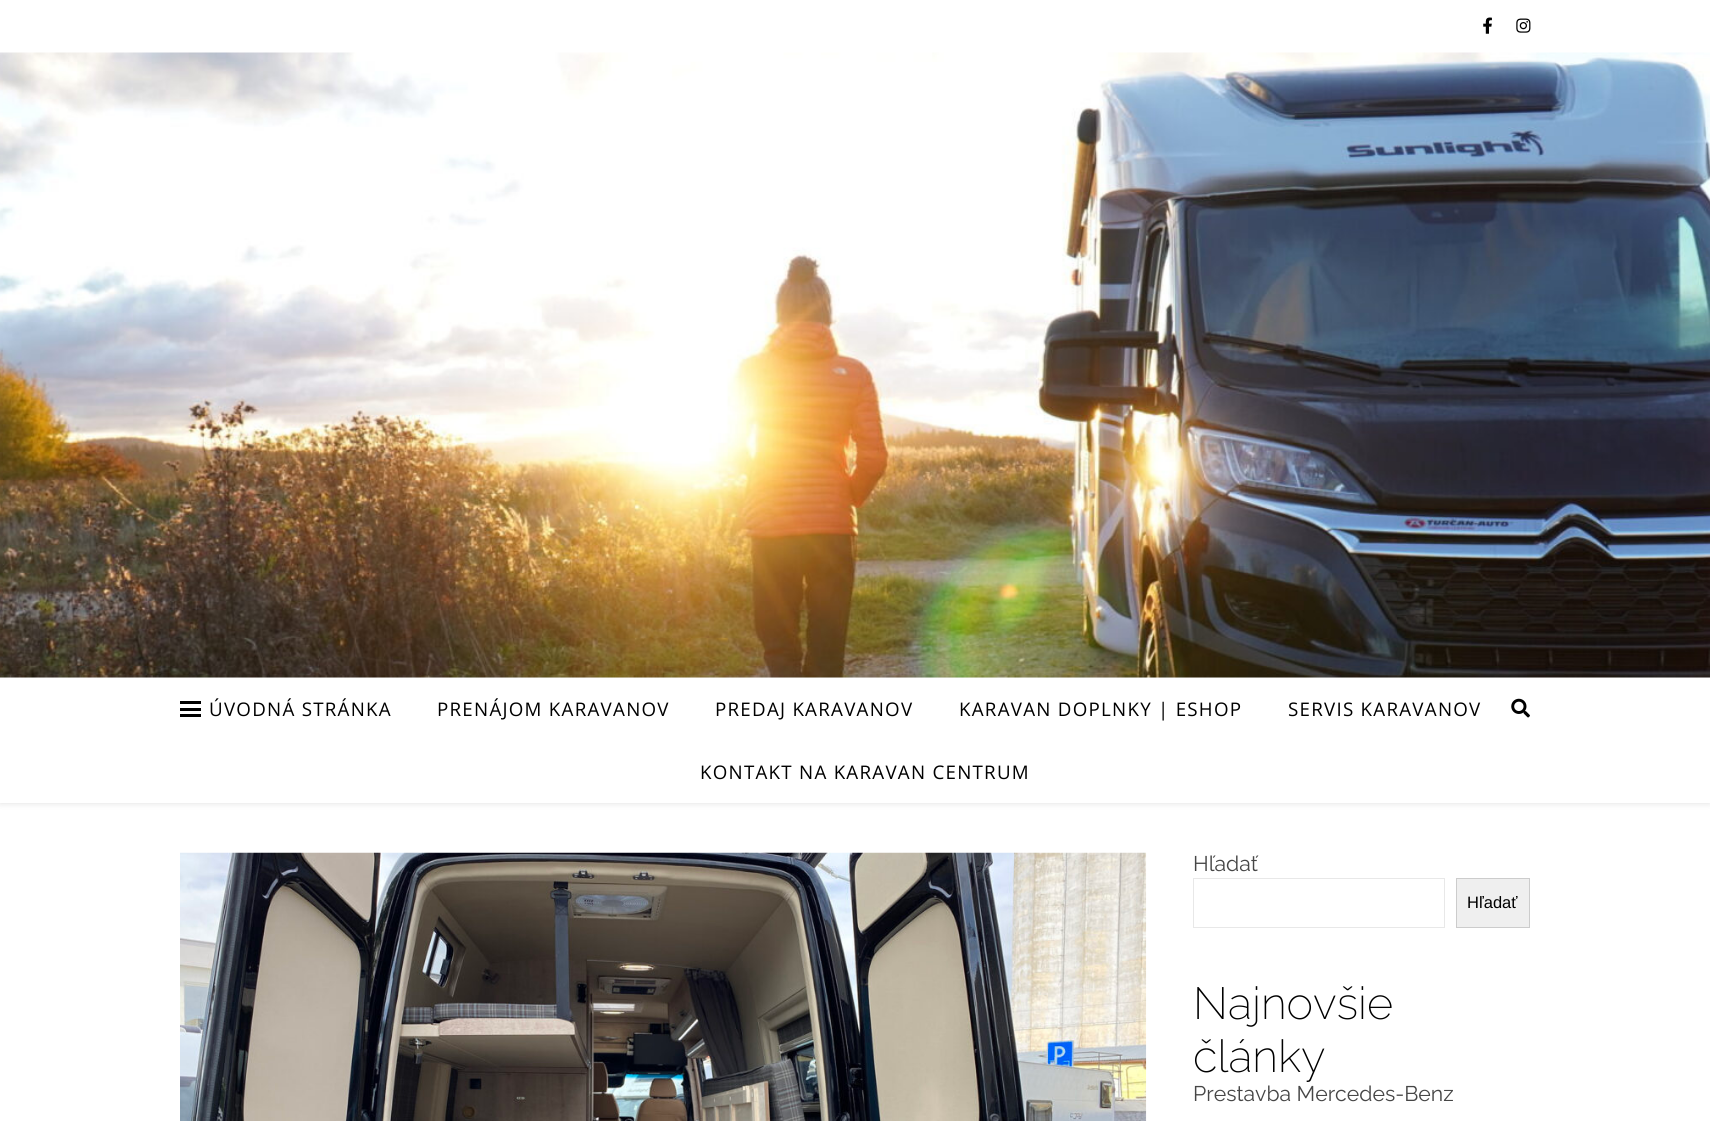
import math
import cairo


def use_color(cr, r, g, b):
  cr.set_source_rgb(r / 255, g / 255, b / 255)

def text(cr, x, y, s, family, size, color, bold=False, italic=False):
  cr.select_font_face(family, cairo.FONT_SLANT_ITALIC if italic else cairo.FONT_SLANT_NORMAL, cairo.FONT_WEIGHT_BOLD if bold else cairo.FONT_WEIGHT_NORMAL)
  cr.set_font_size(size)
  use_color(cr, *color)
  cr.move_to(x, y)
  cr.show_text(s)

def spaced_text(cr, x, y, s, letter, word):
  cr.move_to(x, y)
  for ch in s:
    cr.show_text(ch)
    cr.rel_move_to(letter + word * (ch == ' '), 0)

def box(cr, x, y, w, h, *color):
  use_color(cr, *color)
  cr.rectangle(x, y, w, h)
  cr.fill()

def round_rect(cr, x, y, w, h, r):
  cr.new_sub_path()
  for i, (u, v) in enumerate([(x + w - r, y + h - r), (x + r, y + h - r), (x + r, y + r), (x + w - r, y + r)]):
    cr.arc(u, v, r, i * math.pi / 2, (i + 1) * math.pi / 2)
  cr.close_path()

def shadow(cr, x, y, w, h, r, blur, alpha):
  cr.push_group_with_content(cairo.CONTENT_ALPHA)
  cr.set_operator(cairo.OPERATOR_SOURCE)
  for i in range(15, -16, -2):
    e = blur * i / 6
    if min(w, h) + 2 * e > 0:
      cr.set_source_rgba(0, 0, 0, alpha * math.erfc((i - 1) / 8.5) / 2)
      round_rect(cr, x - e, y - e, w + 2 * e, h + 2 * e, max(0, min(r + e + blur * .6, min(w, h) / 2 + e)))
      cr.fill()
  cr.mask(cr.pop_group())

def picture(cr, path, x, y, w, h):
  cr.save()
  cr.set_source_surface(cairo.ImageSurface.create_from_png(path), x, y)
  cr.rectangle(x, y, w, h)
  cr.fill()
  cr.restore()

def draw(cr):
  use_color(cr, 255, 255, 255)
  cr.paint()
  picture(cr, "img_01.png", 1483, 17, 9, 17)
  picture(cr, "img_02.png", 1516, 18, 15, 15)
  picture(cr, "img_03.png", 0, 52, 1710, 626)
  use_color(cr, 0, 0, 0)
  shadow(cr, 0, 679, 1710, 125, 0, 3, 0.1)
  box(cr, 0, 678, 1710, 125, 255, 255, 255)
  box(cr, 180, 701, 21, 3, 0, 0, 0)
  box(cr, 180, 708, 21, 3, 0, 0, 0)
  box(cr, 180, 714, 21, 3, 0, 0, 0)
  picture(cr, "img_04.png", 1511, 698, 19, 20)
  picture(cr, "img_05.png", 180, 852, 967, 269)
  cr.rectangle(1193.5, 878.5, 251, 49)
  use_color(cr, 232, 232, 232)
  cr.set_line_width(1)
  cr.stroke()
  use_color(cr, 239, 239, 239)
  cr.rectangle(1456.5, 878.5, 73, 49)
  cr.fill_preserve()
  use_color(cr, 204, 204, 204)
  cr.stroke()
  cr.select_font_face("Open Sans")
  cr.set_font_size(18.75)
  use_color(cr, 0, 0, 0)
  spaced_text(cr, 209, 716, "ÚVODNÁ STRÁNKA", 1.25, 0)
  spaced_text(cr, 437, 716, "PRENÁJOM KARAVANOV", 1.25, 0)
  spaced_text(cr, 715, 716, "PREDAJ KARAVANOV", 1.25, 0)
  spaced_text(cr, 959, 716, "KARAVAN DOPLNKY | ESHOP", 1.25, 0)
  spaced_text(cr, 1288, 716, "SERVIS KARAVANOV", 1.25, 0)
  spaced_text(cr, 700, 779, "KONTAKT NA KARAVAN CENTRUM", 1.25, 0)
  text(cr, 1193, 871, "Hľadať", "Raleway", 21.25, (70, 70, 70))
  text(cr, 1467, 908, "Hľadať", "Liberation Sans", 16.5, (0, 0, 0))
  text(cr, 1193, 1019, "Najnovšie", "Raleway ExtraLight", 45, (0, 0, 0))
  text(cr, 1193, 1072, "články", "Raleway ExtraLight", 45, (0, 0, 0))
  text(cr, 1193, 1101, "Prestavba Mercedes-Benz", "Raleway", 21.25, (70, 70, 70))


surface = cairo.ImageSurface(cairo.FORMAT_RGB24, 1710, 1121)
cr = cairo.Context(surface)
options = cairo.FontOptions()
options.set_hint_metrics(cairo.HINT_METRICS_OFF)
options.set_hint_style(cairo.HINT_STYLE_NONE)
cr.set_font_options(options)
cr.set_miter_limit(4)
draw(cr)
surface.write_to_png("out.png")
